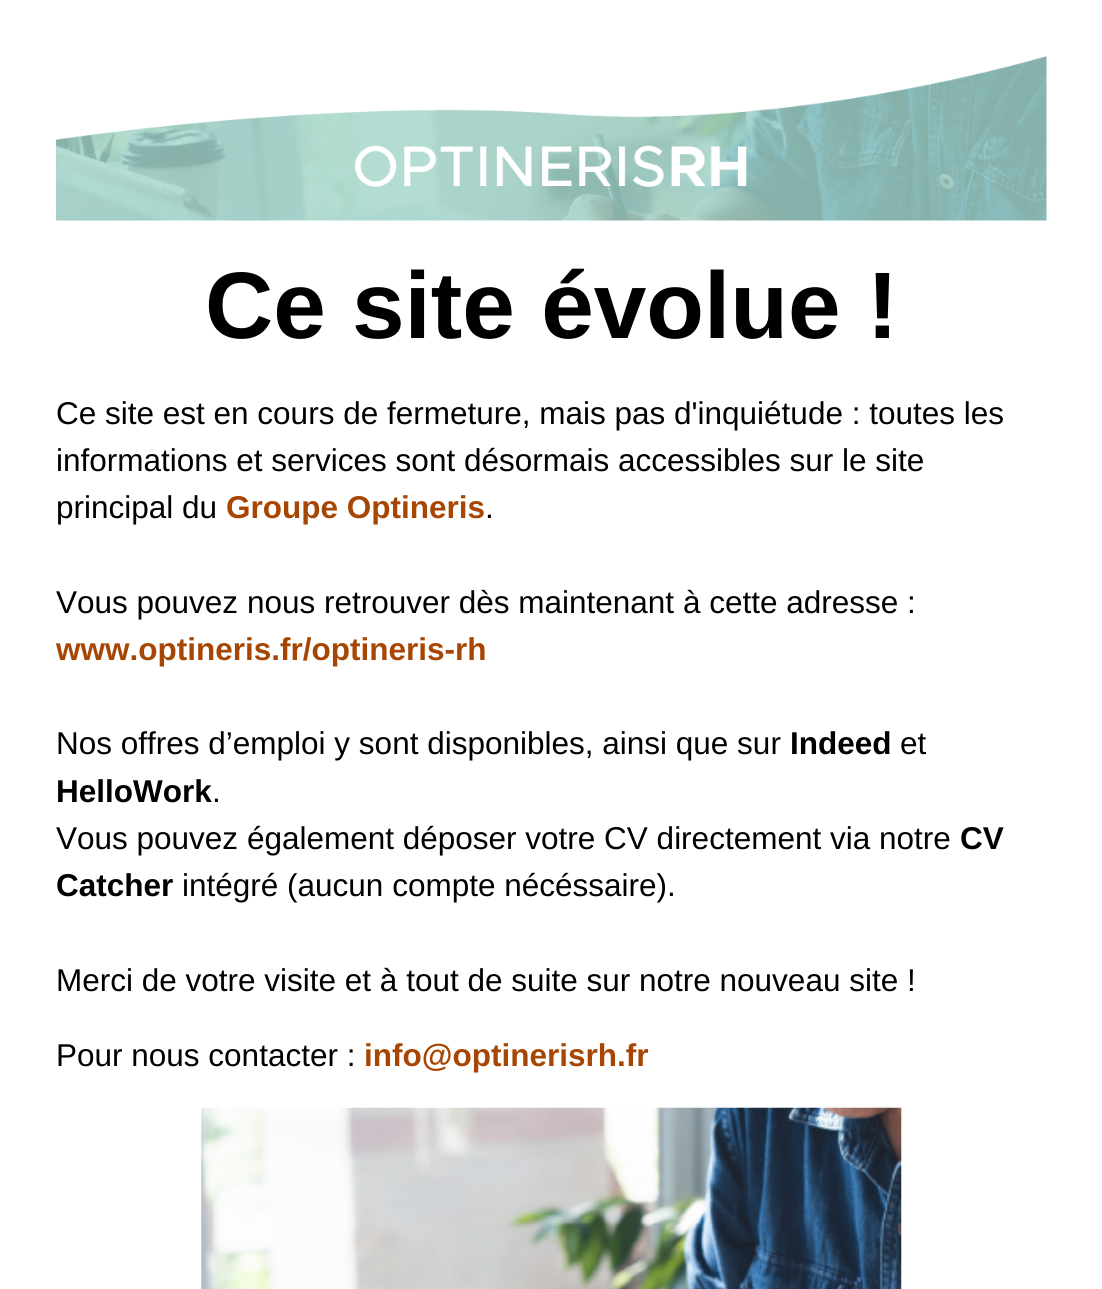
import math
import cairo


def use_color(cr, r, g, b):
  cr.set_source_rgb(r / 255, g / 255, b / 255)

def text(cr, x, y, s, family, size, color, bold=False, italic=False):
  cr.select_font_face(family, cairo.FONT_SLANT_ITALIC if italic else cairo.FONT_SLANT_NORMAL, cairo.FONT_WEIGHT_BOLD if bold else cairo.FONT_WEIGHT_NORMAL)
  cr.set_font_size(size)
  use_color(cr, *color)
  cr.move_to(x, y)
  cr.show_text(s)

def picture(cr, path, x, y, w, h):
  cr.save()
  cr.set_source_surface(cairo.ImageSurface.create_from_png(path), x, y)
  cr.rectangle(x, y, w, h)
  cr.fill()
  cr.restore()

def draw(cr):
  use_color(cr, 255, 255, 255)
  cr.paint()
  picture(cr, "img_01.png", 56, 56, 991, 165)
  picture(cr, "img_02.png", 201, 1107, 701, 182)
  text(cr, 205, 338, "Ce site évolue !", "Liberation Sans", 94.5, (0, 0, 0), bold=True)
  text(cr, 56, 424, "Ce site est en cours de fermeture, mais pas d'inquiétude : toutes les", "Liberation Sans", 31.5, (0, 0, 0))
  text(cr, 56, 471, "informations et services sont désormais accessibles sur le site", "Liberation Sans", 31.5, (0, 0, 0))
  text(cr, 56, 518, "principal du", "Liberation Sans", 31.5, (0, 0, 0))
  text(cr, 226, 518, "Groupe Optineris", "Liberation Sans", 31.5, (167, 70, 2), bold=True)
  text(cr, 485, 518, ".", "Liberation Sans", 31.5, (0, 0, 0))
  text(cr, 56, 613, "Vous pouvez nous retrouver dès maintenant à cette adresse :", "Liberation Sans", 31.5, (0, 0, 0))
  text(cr, 56, 660, "www.optineris.fr/optineris-rh", "Liberation Sans", 31.5, (167, 70, 2), bold=True)
  text(cr, 56, 754, "Nos offres d’emploi y sont disponibles, ainsi que sur", "Liberation Sans", 31.5, (0, 0, 0))
  text(cr, 790, 754, "Indeed", "Liberation Sans", 31.5, (0, 0, 0), bold=True)
  text(cr, 900, 754, "et", "Liberation Sans", 31.5, (0, 0, 0))
  text(cr, 56, 802, "HelloWork", "Liberation Sans", 31.5, (0, 0, 0), bold=True)
  text(cr, 212, 802, ".", "Liberation Sans", 31.5, (0, 0, 0))
  text(cr, 56, 849, "Vous pouvez également déposer votre CV directement via notre", "Liberation Sans", 31.5, (0, 0, 0))
  text(cr, 960, 849, "CV", "Liberation Sans", 31.5, (0, 0, 0), bold=True)
  text(cr, 56, 896, "Catcher", "Liberation Sans", 31.5, (0, 0, 0), bold=True)
  text(cr, 182, 896, "intégré (aucun compte nécéssaire).", "Liberation Sans", 31.5, (0, 0, 0))
  text(cr, 56, 991, "Merci de votre visite et à tout de suite sur notre nouveau site !", "Liberation Sans", 31.5, (0, 0, 0))
  text(cr, 56, 1066, "Pour nous contacter :", "Liberation Sans", 31.5, (0, 0, 0))
  text(cr, 364, 1066, "info@optinerisrh.fr", "Liberation Sans", 31.5, (167, 70, 2), bold=True)


surface = cairo.ImageSurface(cairo.FORMAT_RGB24, 1102, 1289)
cr = cairo.Context(surface)
options = cairo.FontOptions()
options.set_hint_metrics(cairo.HINT_METRICS_OFF)
options.set_hint_style(cairo.HINT_STYLE_NONE)
cr.set_font_options(options)
cr.set_miter_limit(4)
draw(cr)
surface.write_to_png("out.png")
